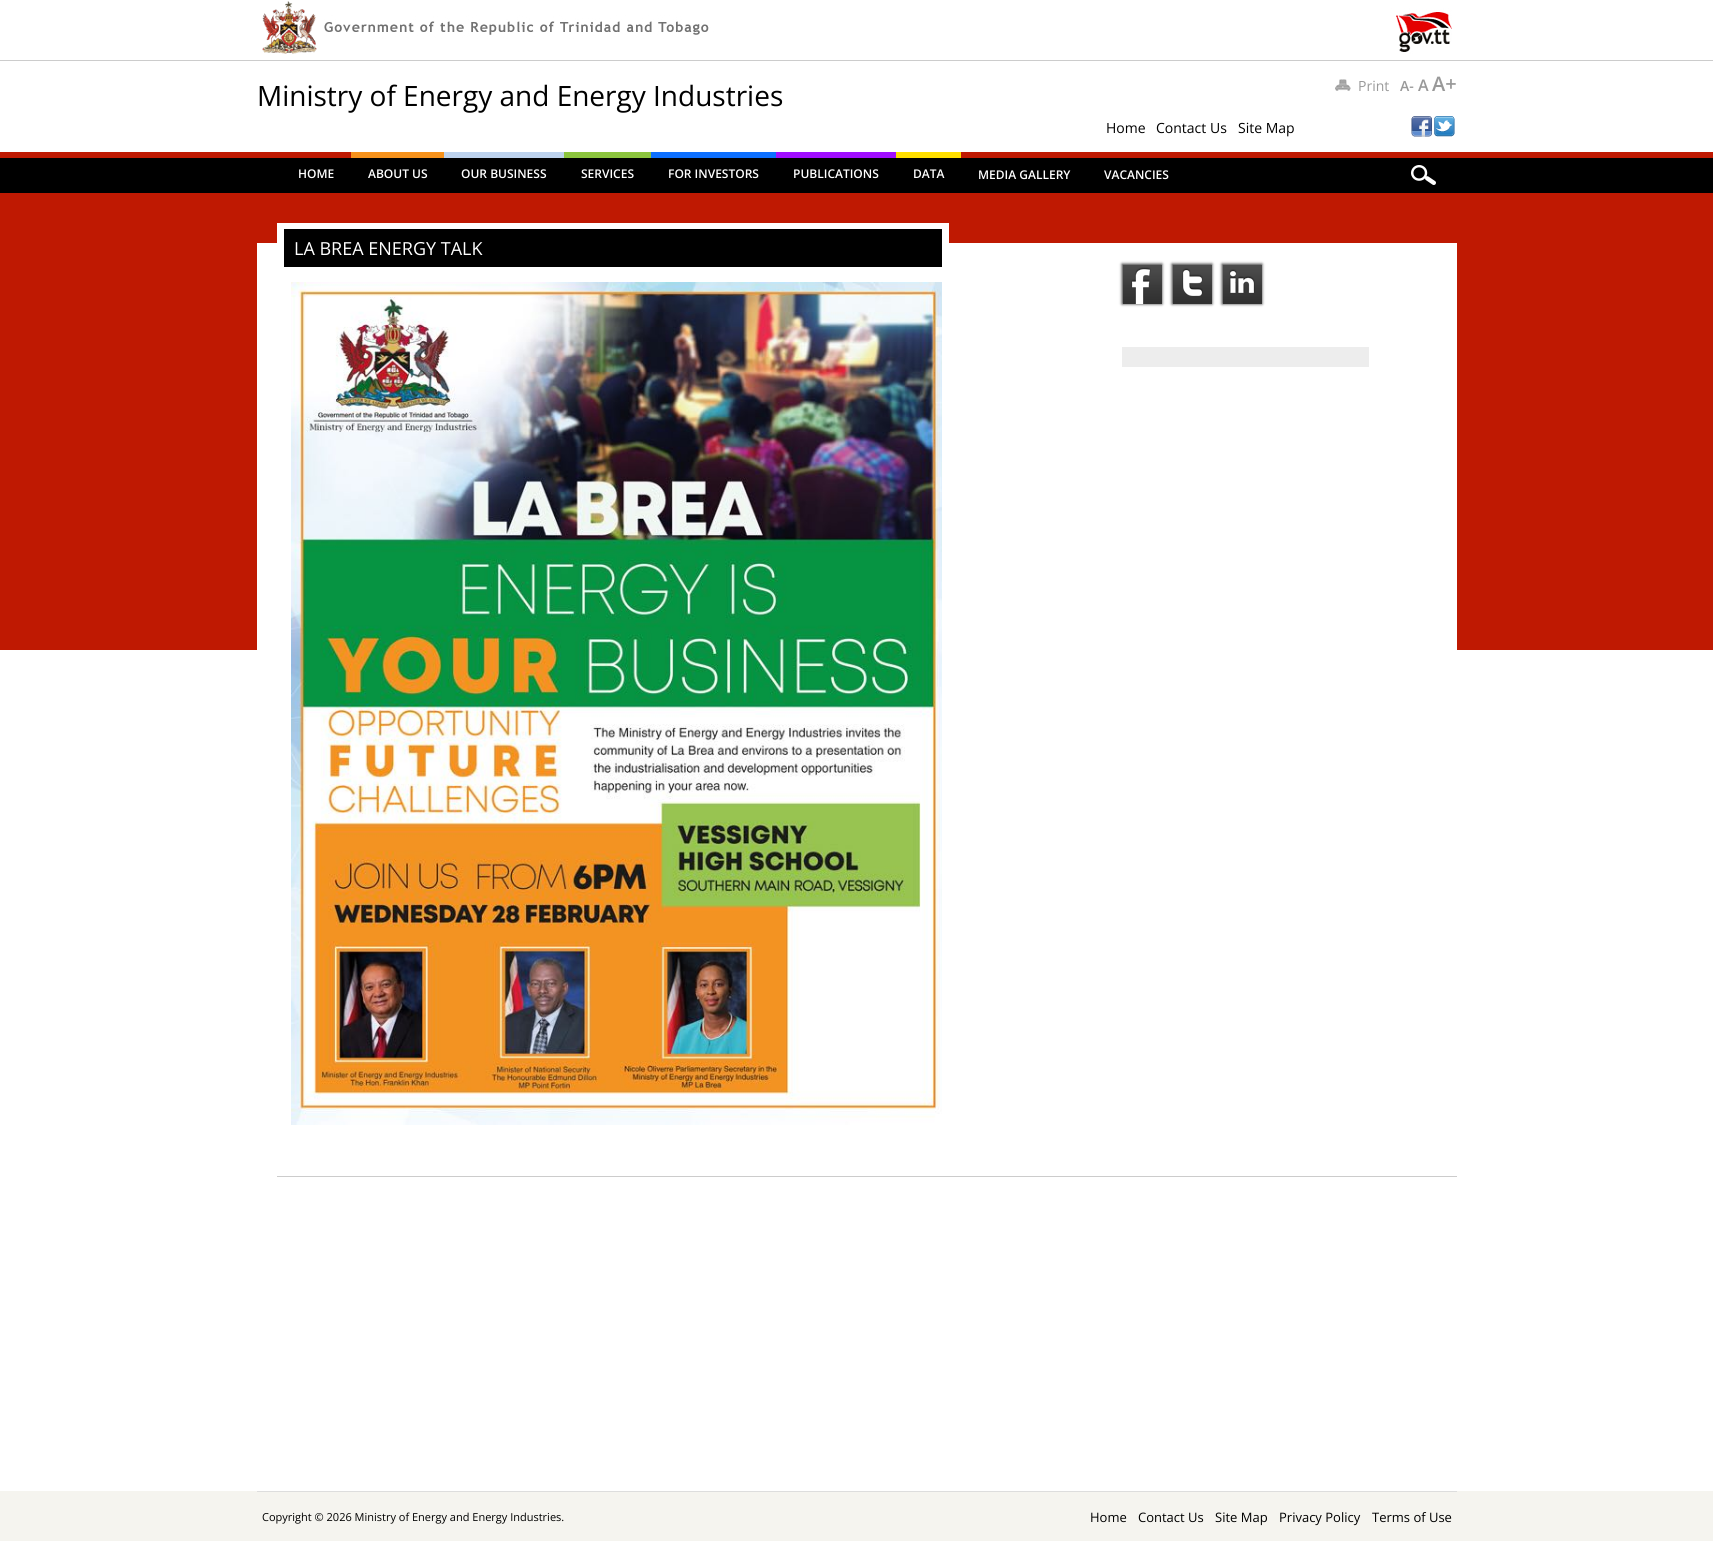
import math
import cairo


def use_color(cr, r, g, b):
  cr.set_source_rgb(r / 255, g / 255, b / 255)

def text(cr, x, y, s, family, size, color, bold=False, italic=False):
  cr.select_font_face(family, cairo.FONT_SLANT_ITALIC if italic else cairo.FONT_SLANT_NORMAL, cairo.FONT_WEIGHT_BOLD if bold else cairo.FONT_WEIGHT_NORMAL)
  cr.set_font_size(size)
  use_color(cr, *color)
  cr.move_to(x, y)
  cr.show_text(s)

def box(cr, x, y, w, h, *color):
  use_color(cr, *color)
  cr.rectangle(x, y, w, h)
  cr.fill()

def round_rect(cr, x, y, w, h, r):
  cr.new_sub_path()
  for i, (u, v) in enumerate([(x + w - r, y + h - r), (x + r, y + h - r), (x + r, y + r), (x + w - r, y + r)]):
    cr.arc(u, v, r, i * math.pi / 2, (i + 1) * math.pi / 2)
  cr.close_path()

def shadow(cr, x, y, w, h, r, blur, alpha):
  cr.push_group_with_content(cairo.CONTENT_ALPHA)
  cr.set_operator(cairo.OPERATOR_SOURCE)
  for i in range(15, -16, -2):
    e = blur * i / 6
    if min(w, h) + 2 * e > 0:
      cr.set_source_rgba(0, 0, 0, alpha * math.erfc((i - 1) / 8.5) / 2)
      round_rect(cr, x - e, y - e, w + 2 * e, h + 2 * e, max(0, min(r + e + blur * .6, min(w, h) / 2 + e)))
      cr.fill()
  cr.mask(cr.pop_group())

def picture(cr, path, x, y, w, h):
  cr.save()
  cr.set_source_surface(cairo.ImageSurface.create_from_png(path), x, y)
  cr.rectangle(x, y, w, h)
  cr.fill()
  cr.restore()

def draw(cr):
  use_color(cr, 255, 255, 255)
  cr.paint()
  box(cr, 0, 193, 1713, 457, 191, 25, 2)
  box(cr, 0, 60, 1713, 1, 204, 204, 204)
  picture(cr, "img_01.png", 262, 1, 1190, 53)
  picture(cr, "img_02.png", 1335, 79, 16, 12)
  picture(cr, "img_03.png", 1411, 116, 21, 21)
  picture(cr, "img_04.png", 1434, 116, 21, 21)
  box(cr, 0, 158, 1713, 35, 0, 0, 0)
  box(cr, 0, 152, 1713, 6, 191, 25, 2)
  box(cr, 351, 152, 93, 6, 246, 146, 28)
  box(cr, 444, 152, 120, 6, 189, 210, 237)
  box(cr, 564, 152, 87, 6, 140, 196, 62)
  box(cr, 651, 152, 125, 6, 14, 112, 255)
  box(cr, 776, 152, 120, 6, 161, 14, 255)
  box(cr, 896, 152, 65, 6, 255, 223, 0)
  picture(cr, "img_05.png", 1411, 165, 25, 20)
  box(cr, 257, 243, 1200, 407, 255, 255, 255)
  box(cr, 277, 1176, 1180, 1, 204, 204, 204)
  box(cr, 277, 223, 672, 20, 255, 255, 255)
  box(cr, 284, 229, 658, 38, 0, 0, 0)
  picture(cr, "img_06.png", 291, 282, 651, 843)
  use_color(cr, 51, 51, 51)
  shadow(cr, 1122, 264, 40, 40, 0, 1.5, 1)
  picture(cr, "img_07.png", 1123, 265, 39, 39)
  shadow(cr, 1172, 264, 40, 40, 0, 1.5, 1)
  picture(cr, "img_08.png", 1173, 265, 39, 39)
  shadow(cr, 1222, 264, 40, 40, 0, 1.5, 1)
  picture(cr, "img_09.png", 1223, 265, 39, 39)
  box(cr, 1122, 347, 247, 20, 237, 237, 237)
  box(cr, 0, 1491, 1713, 50, 245, 244, 239)
  box(cr, 257, 1491, 1200, 1, 221, 221, 221)
  text(cr, 257, 106, "Ministry of Energy and Energy Industries", "Open Sans", 28, (0, 0, 0))
  text(cr, 1358, 91, "Print", "Open Sans", 14, (153, 153, 153))
  text(cr, 1400, 91, "A-", "Open Sans SemiBold", 14, (153, 153, 153))
  text(cr, 1418, 91, "A", "Open Sans SemiBold", 16, (153, 153, 153))
  text(cr, 1432, 91, "A+", "Open Sans SemiBold", 20, (153, 153, 153))
  text(cr, 1106, 133, "Home", "Open Sans", 14, (0, 0, 0))
  text(cr, 1156, 133, "Contact Us", "Open Sans", 14, (0, 0, 0))
  text(cr, 1238, 133, "Site Map", "Open Sans", 14, (0, 0, 0))
  text(cr, 298, 178, "HOME", "Open Sans SemiBold", 12, (255, 255, 255))
  text(cr, 368, 178, "ABOUT US", "Open Sans SemiBold", 12, (255, 255, 255))
  text(cr, 461, 178, "OUR BUSINESS", "Open Sans SemiBold", 12, (255, 255, 255))
  text(cr, 581, 178, "SERVICES", "Open Sans SemiBold", 12, (255, 255, 255))
  text(cr, 668, 178, "FOR INVESTORS", "Open Sans SemiBold", 12, (255, 255, 255))
  text(cr, 793, 178, "PUBLICATIONS", "Open Sans SemiBold", 12, (255, 255, 255))
  text(cr, 913, 178, "DATA", "Open Sans SemiBold", 12, (255, 255, 255))
  text(cr, 978, 179, "MEDIA GALLERY", "Open Sans SemiBold", 12, (255, 255, 255))
  text(cr, 1104, 179, "VACANCIES", "Open Sans SemiBold", 12, (255, 255, 255))
  text(cr, 294, 255, "LA BREA ENERGY TALK", "Open Sans", 18, (255, 255, 255))
  text(cr, 262, 1521, "Copyright © 2026 Ministry of Energy and Energy Industries.", "Open Sans", 11, (0, 0, 0))
  text(cr, 1090, 1522, "Home", "Open Sans", 13, (0, 0, 0))
  text(cr, 1138, 1522, "Contact Us", "Open Sans", 13, (0, 0, 0))
  text(cr, 1215, 1522, "Site Map", "Open Sans", 13, (0, 0, 0))
  text(cr, 1279, 1522, "Privacy Policy", "Open Sans", 13, (0, 0, 0))
  text(cr, 1372, 1522, "Terms of Use", "Open Sans", 13, (0, 0, 0))


surface = cairo.ImageSurface(cairo.FORMAT_RGB24, 1713, 1541)
cr = cairo.Context(surface)
options = cairo.FontOptions()
options.set_hint_metrics(cairo.HINT_METRICS_OFF)
options.set_hint_style(cairo.HINT_STYLE_NONE)
cr.set_font_options(options)
cr.set_miter_limit(4)
draw(cr)
surface.write_to_png("out.png")
